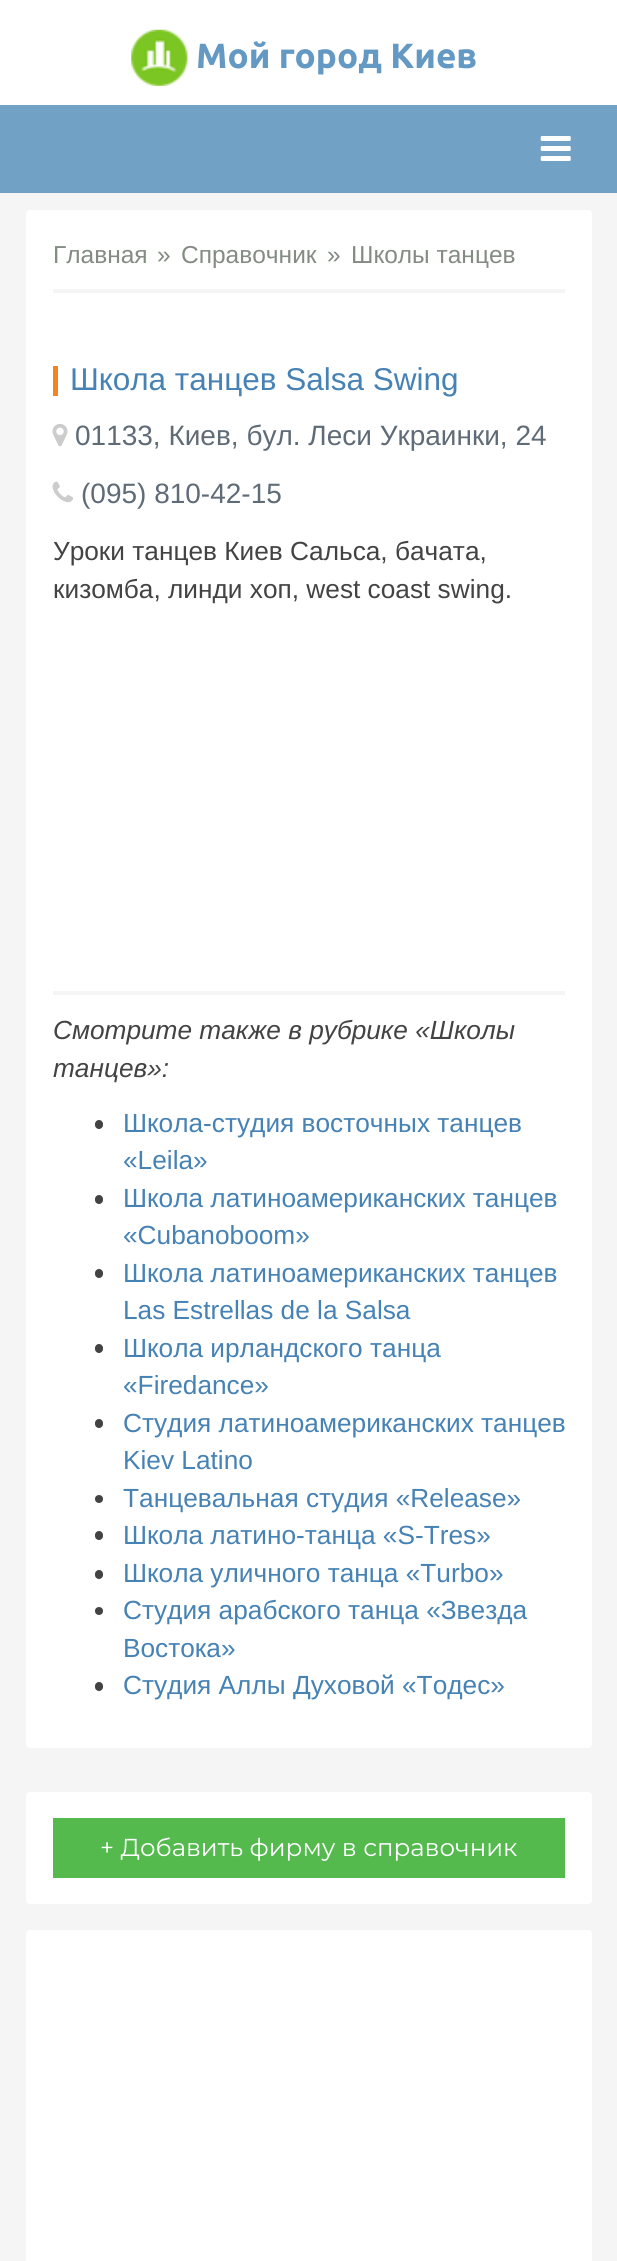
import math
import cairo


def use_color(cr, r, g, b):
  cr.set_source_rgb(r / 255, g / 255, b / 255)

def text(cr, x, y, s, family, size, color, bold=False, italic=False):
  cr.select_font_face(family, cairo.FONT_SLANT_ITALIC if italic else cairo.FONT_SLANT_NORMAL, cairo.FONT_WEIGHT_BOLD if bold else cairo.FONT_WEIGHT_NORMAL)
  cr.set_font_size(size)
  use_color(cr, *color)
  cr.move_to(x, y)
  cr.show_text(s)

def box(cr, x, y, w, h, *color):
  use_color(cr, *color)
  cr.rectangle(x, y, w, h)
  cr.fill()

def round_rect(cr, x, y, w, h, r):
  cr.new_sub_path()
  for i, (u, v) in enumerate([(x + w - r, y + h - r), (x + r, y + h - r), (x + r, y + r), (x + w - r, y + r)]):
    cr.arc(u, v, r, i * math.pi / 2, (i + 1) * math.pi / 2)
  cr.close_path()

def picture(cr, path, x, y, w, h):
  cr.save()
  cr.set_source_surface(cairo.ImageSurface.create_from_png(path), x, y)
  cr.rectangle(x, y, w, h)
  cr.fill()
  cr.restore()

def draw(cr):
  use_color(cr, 245, 245, 245)
  cr.paint()
  box(cr, 0, 0, 617, 105, 255, 255, 255)
  picture(cr, "img_01.png", 131, 29, 57, 57)
  box(cr, 0, 105, 617, 88, 114, 161, 198)
  picture(cr, "img_02.png", 540, 136, 31, 25)
  use_color(cr, 255, 255, 255)
  round_rect(cr, 26, 210, 566, 1538, 4)
  cr.fill()
  box(cr, 53, 289, 512, 4, 245, 245, 245)
  box(cr, 53, 366, 5, 30, 247, 131, 32)
  picture(cr, "img_03.png", 52, 423, 16, 24)
  picture(cr, "img_04.png", 52, 481, 21, 22)
  box(cr, 53, 991, 512, 4, 245, 245, 245)
  use_color(cr, 67, 67, 67)
  round_rect(cr, 95, 1120, 8, 9, 4)
  cr.fill()
  round_rect(cr, 95, 1195, 8, 9, 4)
  cr.fill()
  round_rect(cr, 95, 1269, 8, 9, 4)
  cr.fill()
  round_rect(cr, 95, 1344, 8, 9, 4)
  cr.fill()
  round_rect(cr, 95, 1419, 8, 9, 4)
  cr.fill()
  cr.arc(99, 1499, 4, 0, 2 * math.pi)
  cr.fill()
  round_rect(cr, 95, 1531, 8, 9, 4)
  cr.fill()
  round_rect(cr, 95, 1570, 8, 9, 4)
  cr.fill()
  cr.arc(99, 1611, 4, 0, 2 * math.pi)
  cr.fill()
  round_rect(cr, 95, 1682, 8, 9, 4)
  cr.fill()
  use_color(cr, 255, 255, 255)
  round_rect(cr, 26, 1792, 566, 112, 4)
  cr.fill()
  box(cr, 53, 1818, 512, 60, 84, 186, 78)
  use_color(cr, 255, 255, 255)
  round_rect(cr, 26, 1930, 566, 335, 4)
  cr.fill()
  text(cr, 196, 68, "Мой город Киев", "Ubuntu", 35, (99, 153, 195), bold=True)
  text(cr, 53, 263, "Главная", "Liberation Sans", 24.5, (131, 139, 131))
  text(cr, 157, 263, "»", "Liberation Sans", 24.5, (131, 139, 131))
  text(cr, 181, 263, "Справочник", "Liberation Sans", 24.5, (131, 139, 131))
  text(cr, 327, 263, "»", "Liberation Sans", 24.5, (131, 139, 131))
  text(cr, 351, 263, "Школы танцев", "Liberation Sans", 24.5, (131, 139, 131))
  text(cr, 70, 390, "Школа танцев Salsa Swing", "Liberation Sans", 31.5, (70, 130, 180))
  text(cr, 75, 445, "01133, Киев, бул. Леси Украинки, 24", "Liberation Sans", 28, (95, 107, 119))
  text(cr, 81, 503, "(095) 810-42-15", "Liberation Sans", 28, (95, 107, 119))
  text(cr, 53, 560, "Уроки танцев Киев Сальса, бачата,", "Liberation Sans", 26.25, (67, 67, 67))
  text(cr, 53, 598, "кизомба, линди хоп, west coast swing.", "Liberation Sans", 26.25, (67, 67, 67))
  text(cr, 53, 1039, "Смотрите также в рубрике «Школы", "Liberation Sans", 26.25, (67, 67, 67), italic=True)
  text(cr, 53, 1077, "танцев»:", "Liberation Sans", 26.25, (67, 67, 67), italic=True)
  text(cr, 123, 1132, "Школа-студия восточных танцев", "Liberation Sans", 26.25, (70, 130, 180))
  text(cr, 123, 1169, "«Leila»", "Liberation Sans", 26.25, (70, 130, 180))
  text(cr, 123, 1207, "Школа латиноамериканских танцев", "Liberation Sans", 26.25, (70, 130, 180))
  text(cr, 123, 1244, "«Cubanoboom»", "Liberation Sans", 26.25, (70, 130, 180))
  text(cr, 123, 1282, "Школа латиноамериканских танцев", "Liberation Sans", 26.25, (70, 130, 180))
  text(cr, 123, 1319, "Las Estrellas de la Salsa", "Liberation Sans", 26.25, (70, 130, 180))
  text(cr, 123, 1357, "Школа ирландского танца", "Liberation Sans", 26.25, (70, 130, 180))
  text(cr, 123, 1394, "«Firedance»", "Liberation Sans", 26.25, (70, 130, 180))
  text(cr, 123, 1432, "Cтудия латиноамериканских танцев", "Liberation Sans", 26.25, (70, 130, 180))
  text(cr, 123, 1469, "Kiev Latino", "Liberation Sans", 26.25, (70, 130, 180))
  text(cr, 123, 1507, "Танцевальная студия «Release»", "Liberation Sans", 26.25, (70, 130, 180))
  text(cr, 123, 1544, "Школа латино-танца «S-Tres»", "Liberation Sans", 26.25, (70, 130, 180))
  text(cr, 123, 1582, "Школа уличного танца «Turbo»", "Liberation Sans", 26.25, (70, 130, 180))
  text(cr, 123, 1619, "Студия арабского танца «Звезда", "Liberation Sans", 26.25, (70, 130, 180))
  text(cr, 123, 1657, "Востока»", "Liberation Sans", 26.25, (70, 130, 180))
  text(cr, 123, 1694, "Студия Аллы Духовой «Тодес»", "Liberation Sans", 26.25, (70, 130, 180))
  text(cr, 100, 1856, "+ Добавить фирму в справочник", "Montserrat", 24.5, (255, 255, 255))


surface = cairo.ImageSurface(cairo.FORMAT_RGB24, 617, 2261)
cr = cairo.Context(surface)
options = cairo.FontOptions()
options.set_hint_metrics(cairo.HINT_METRICS_OFF)
options.set_hint_style(cairo.HINT_STYLE_NONE)
cr.set_font_options(options)
cr.set_miter_limit(4)
draw(cr)
surface.write_to_png("out.png")
